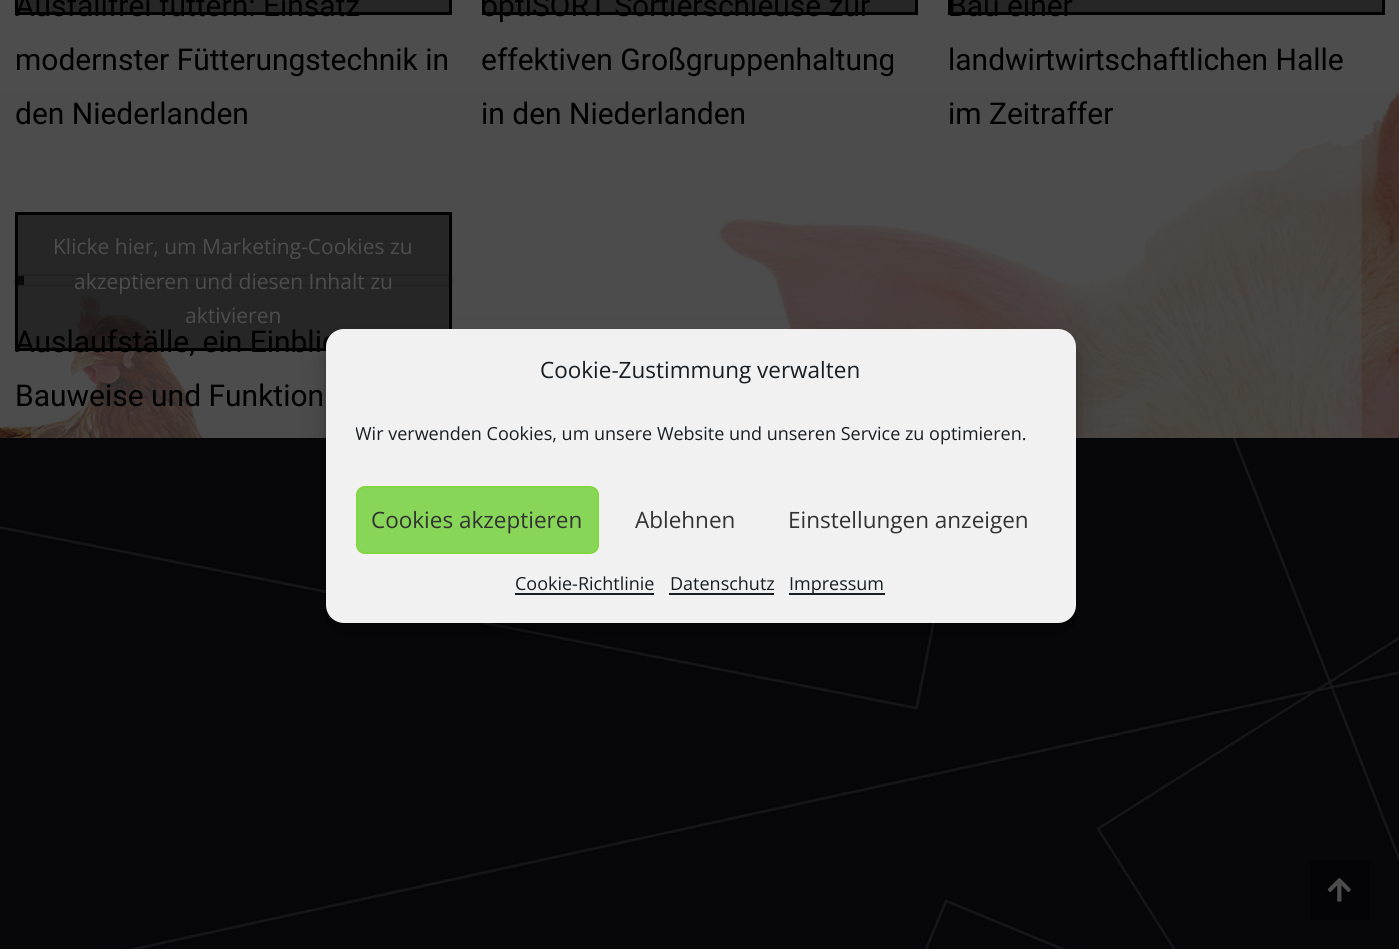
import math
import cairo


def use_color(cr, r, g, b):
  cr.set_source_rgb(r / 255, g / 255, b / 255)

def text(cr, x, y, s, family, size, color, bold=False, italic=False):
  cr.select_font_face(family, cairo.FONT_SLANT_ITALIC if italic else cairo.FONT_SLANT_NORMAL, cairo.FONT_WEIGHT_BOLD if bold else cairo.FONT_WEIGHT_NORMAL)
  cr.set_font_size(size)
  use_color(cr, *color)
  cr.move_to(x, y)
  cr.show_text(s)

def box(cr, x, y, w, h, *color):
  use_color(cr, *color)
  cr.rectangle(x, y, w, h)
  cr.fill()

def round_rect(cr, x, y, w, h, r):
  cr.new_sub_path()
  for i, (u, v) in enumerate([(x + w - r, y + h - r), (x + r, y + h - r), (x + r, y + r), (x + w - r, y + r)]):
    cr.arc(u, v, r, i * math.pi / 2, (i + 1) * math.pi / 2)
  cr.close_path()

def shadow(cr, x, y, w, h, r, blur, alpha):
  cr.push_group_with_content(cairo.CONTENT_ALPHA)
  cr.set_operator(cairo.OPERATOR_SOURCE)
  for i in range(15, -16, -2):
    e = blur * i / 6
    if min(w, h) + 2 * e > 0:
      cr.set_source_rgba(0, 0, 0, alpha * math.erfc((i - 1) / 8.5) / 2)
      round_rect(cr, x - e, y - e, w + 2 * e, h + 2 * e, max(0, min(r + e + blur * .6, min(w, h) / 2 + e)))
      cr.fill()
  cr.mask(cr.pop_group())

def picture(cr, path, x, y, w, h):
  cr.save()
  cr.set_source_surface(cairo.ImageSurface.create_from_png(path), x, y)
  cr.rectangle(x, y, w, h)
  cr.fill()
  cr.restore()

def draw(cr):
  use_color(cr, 77, 77, 77)
  cr.paint()
  picture(cr, "img_02.png", 0, 90, 1399, 348)
  use_color(cr, 0, 0, 0)
  shadow(cr, 15, 276, 437, 9, 4.5, 1, 0.5)
  use_color(cr, 77, 77, 77)
  round_rect(cr, 15, 276, 437, 9, 4.5)
  cr.fill()
  box(cr, 18, 276, 6, 9, 16, 19, 21)
  picture(cr, "img_01.png", 0, 438, 1399, 511)
  use_color(cr, 4, 4, 6)
  round_rect(cr, 1310, 860, 60, 60, 3)
  cr.fill()
  picture(cr, "img_03.png", 1327, 878, 24, 24)
  text(cr, 15, 16, "Ausfallfrei füttern: Einsatz", "Roboto", 30, (0, 0, 0))
  cr.set_source_rgba(0, 0, 0, 0.5)
  cr.rectangle(16.5, -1.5, 434, 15)
  cr.fill_preserve()
  use_color(cr, 0, 0, 0)
  cr.set_line_width(3)
  cr.stroke()
  text(cr, 15, 70, "modernster Fütterungstechnik in", "Roboto", 30, (0, 0, 0))
  text(cr, 15, 124, "den Niederlanden", "Roboto", 30, (0, 0, 0))
  text(cr, 481, 16, "optiSORT Sortierschleuse zur", "Roboto", 30, (0, 0, 0))
  cr.set_source_rgba(0, 0, 0, 0.5)
  cr.rectangle(483.5, -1.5, 433, 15)
  cr.fill_preserve()
  use_color(cr, 0, 0, 0)
  cr.stroke()
  text(cr, 481, 70, "effektiven Großgruppenhaltung", "Roboto", 30, (0, 0, 0))
  text(cr, 481, 124, "in den Niederlanden", "Roboto", 30, (0, 0, 0))
  text(cr, 948, 16, "Bau einer", "Roboto", 30, (0, 0, 0))
  cr.set_source_rgba(0, 0, 0, 0.5)
  cr.rectangle(953, 0, 429, 12)
  cr.fill()
  cr.rectangle(949.5, -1.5, 434, 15)
  use_color(cr, 0, 0, 0)
  cr.stroke()
  text(cr, 948, 70, "landwirtwirtschaftlichen Halle", "Roboto", 30, (0, 0, 0))
  text(cr, 948, 124, "im Zeitraffer", "Roboto", 30, (0, 0, 0))
  text(cr, 15, 352, "Auslaufställe, ein Einblic", "Roboto", 30, (0, 0, 0))
  cr.set_source_rgba(0, 0, 0, 0.5)
  cr.rectangle(16.5, 213.5, 434, 136)
  cr.fill_preserve()
  use_color(cr, 0, 0, 0)
  cr.stroke()
  text(cr, 185, 323, "aktivieren", "Open Sans", 21, (77, 77, 77))
  text(cr, 74, 289, "akzeptieren und diesen Inhalt zu", "Open Sans", 21, (77, 77, 77))
  text(cr, 53, 254, "Klicke hier, um Marketing-Cookies zu", "Open Sans", 21, (77, 77, 77))
  text(cr, 15, 406, "Bauweise und Funktion", "Roboto", 30, (0, 0, 0))
  use_color(cr, 0, 0, 0)
  shadow(cr, 326, 338, 750, 294, 18, 4.5, 0.23)
  shadow(cr, 326, 344, 750, 294, 18, 15, 0.19)
  use_color(cr, 241, 241, 241)
  round_rect(cr, 326, 329, 750, 294, 18)
  cr.fill()
  text(cr, 540, 378, "Cookie-Zustimmung verwalten", "Open Sans", 22.5, (25, 30, 35))
  cr.save()
  cr.rectangle(356, 422, 690, 34)
  cr.clip()
  text(cr, 355, 440, "Wir verwenden Cookies, um unsere Website und unseren Service zu optimieren.", "Open Sans", 18, (25, 30, 35))
  cr.restore()
  use_color(cr, 136, 214, 87)
  round_rect(cr, 357, 487, 241, 66, 8)
  cr.fill_preserve()
  use_color(cr, 129, 215, 66)
  cr.set_line_width(2)
  cr.stroke()
  text(cr, 371, 528, "Cookies akzeptieren", "Open Sans", 22.5, (51, 51, 51))
  text(cr, 635, 528, "Ablehnen", "Open Sans", 22.5, (51, 51, 51))
  text(cr, 788, 528, "Einstellungen anzeigen", "Open Sans", 22.5, (51, 51, 51))
  text(cr, 515, 590, "Cookie-Richtlinie", "Open Sans", 18, (25, 30, 35))
  box(cr, 515, 593, 139, 2, 25, 30, 35)
  text(cr, 670, 590, "Datenschutz", "Open Sans", 18, (25, 30, 35))
  box(cr, 669, 593, 105, 2, 25, 30, 35)
  box(cr, 789, 593, 96, 2, 25, 30, 35)
  text(cr, 789, 590, "Impressum", "Open Sans", 18, (25, 30, 35))


surface = cairo.ImageSurface(cairo.FORMAT_RGB24, 1399, 949)
cr = cairo.Context(surface)
options = cairo.FontOptions()
options.set_hint_metrics(cairo.HINT_METRICS_OFF)
options.set_hint_style(cairo.HINT_STYLE_NONE)
cr.set_font_options(options)
cr.set_miter_limit(4)
draw(cr)
surface.write_to_png("out.png")
